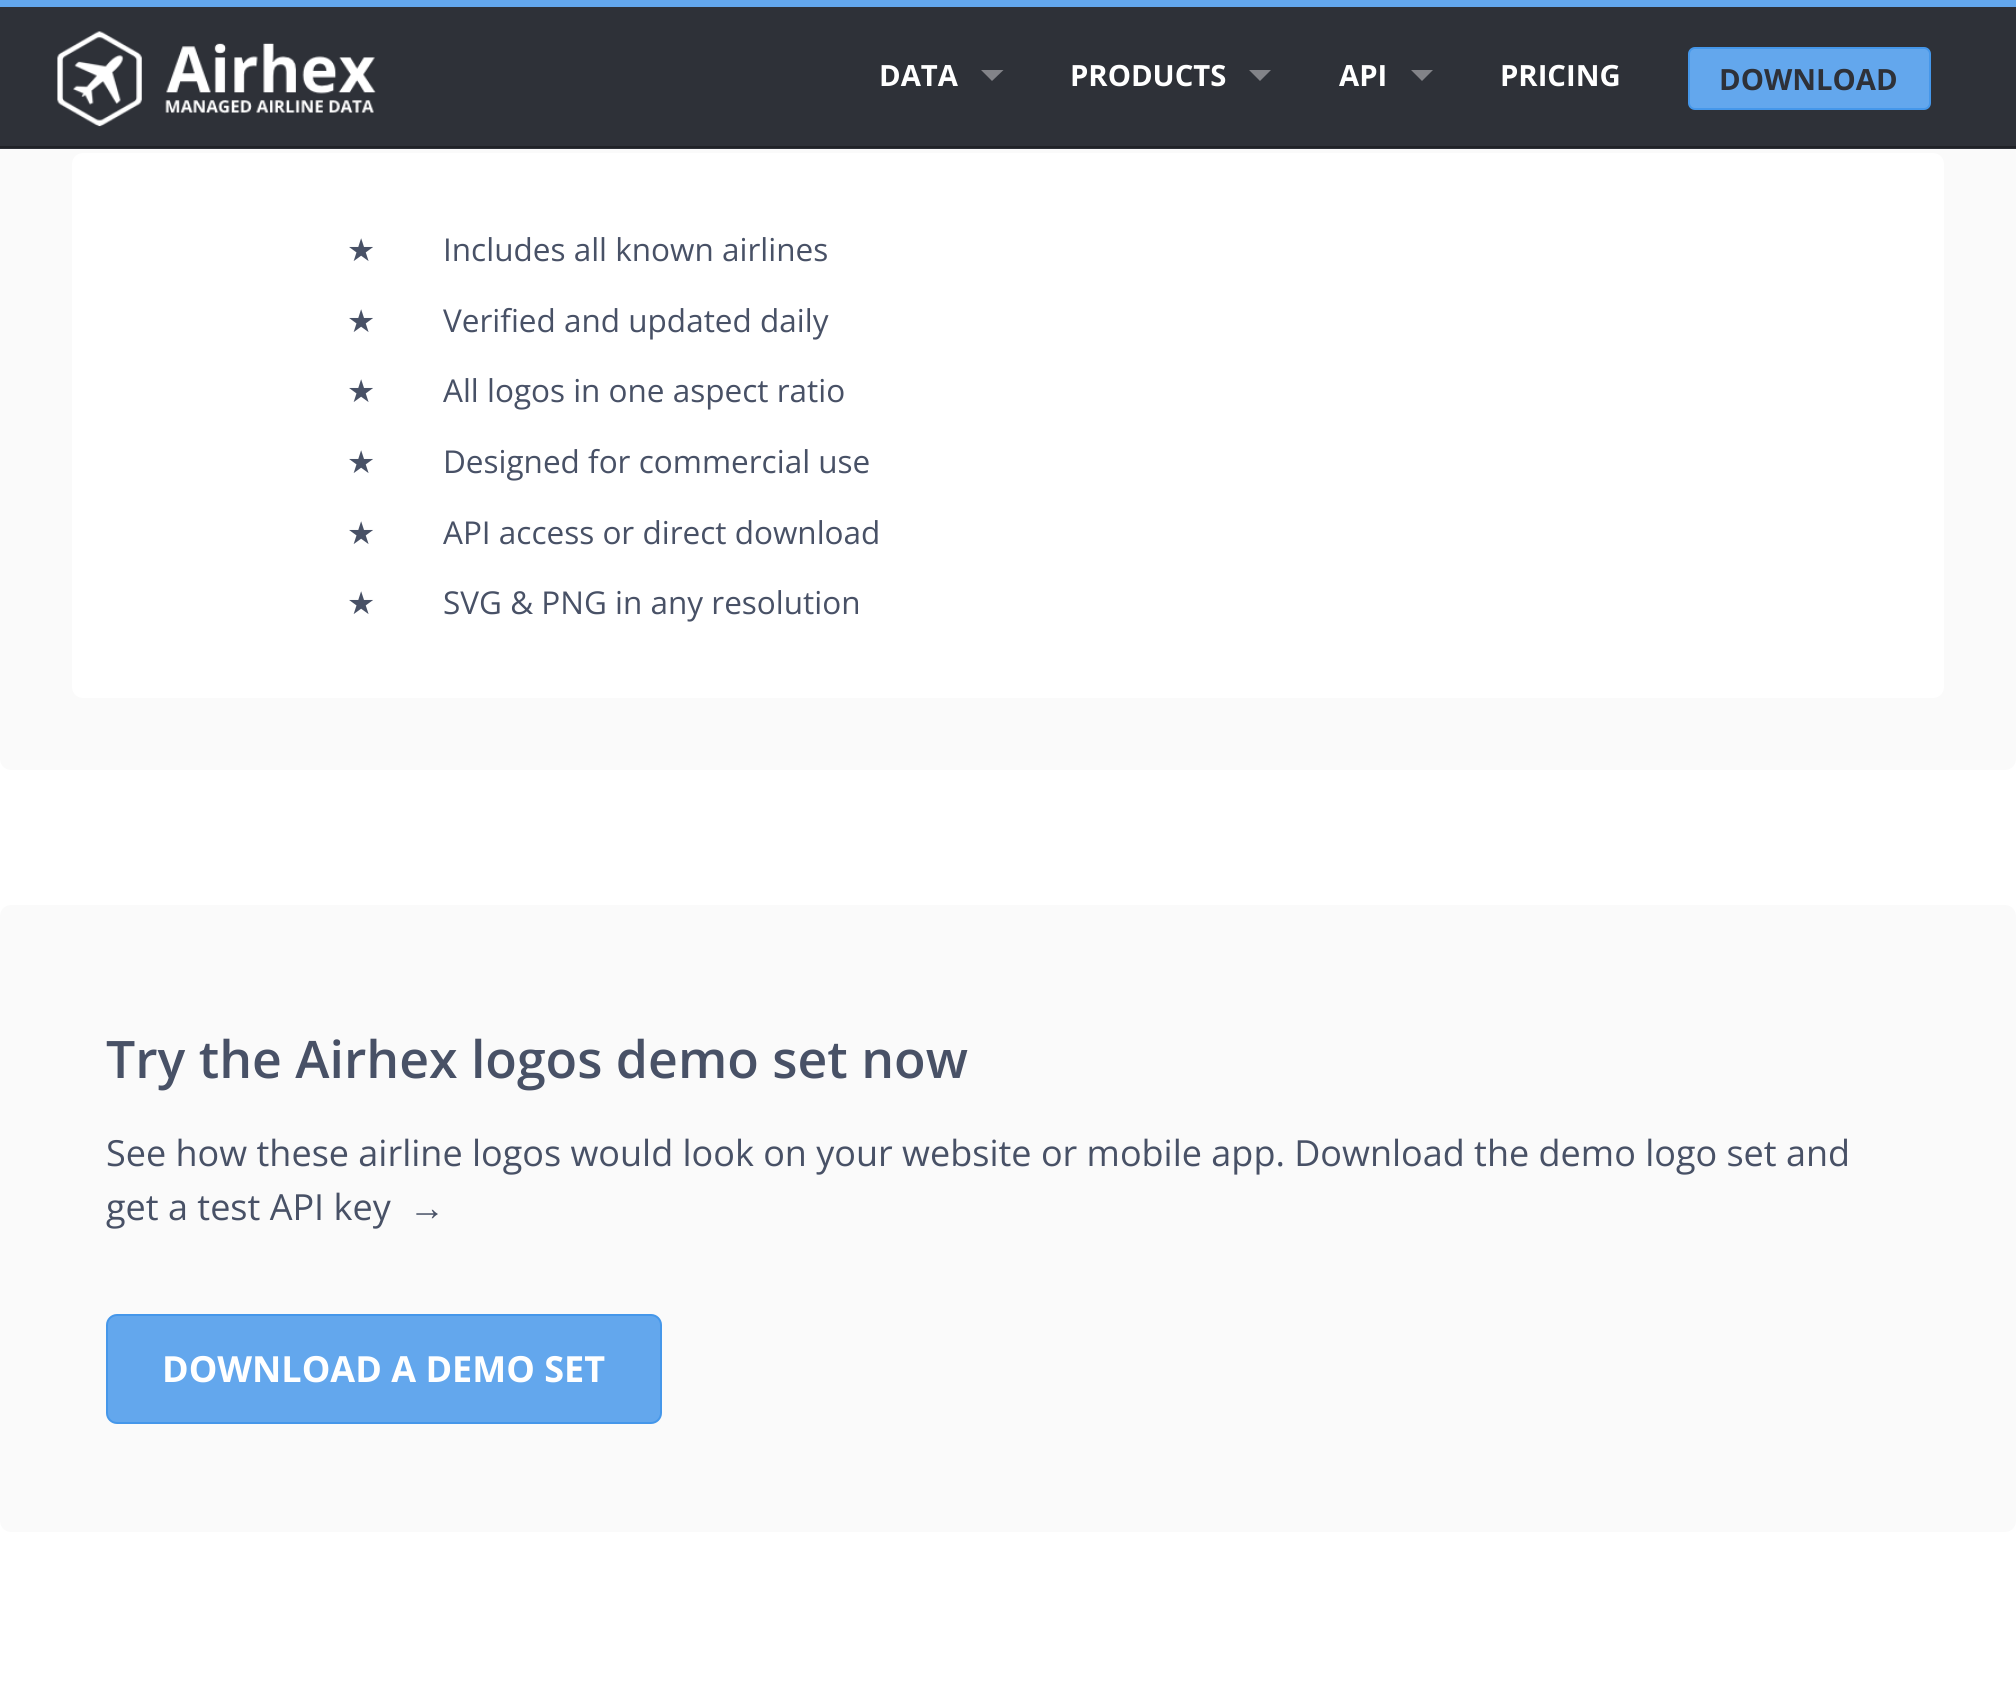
import math
import cairo


def use_color(cr, r, g, b):
  cr.set_source_rgb(r / 255, g / 255, b / 255)

def text(cr, x, y, s, family, size, color, bold=False, italic=False):
  cr.select_font_face(family, cairo.FONT_SLANT_ITALIC if italic else cairo.FONT_SLANT_NORMAL, cairo.FONT_WEIGHT_BOLD if bold else cairo.FONT_WEIGHT_NORMAL)
  cr.set_font_size(size)
  use_color(cr, *color)
  cr.move_to(x, y)
  cr.show_text(s)

def box(cr, x, y, w, h, *color):
  use_color(cr, *color)
  cr.rectangle(x, y, w, h)
  cr.fill()

def round_rect(cr, x, y, w, h, r):
  cr.new_sub_path()
  for i, (u, v) in enumerate([(x + w - r, y + h - r), (x + r, y + h - r), (x + r, y + r), (x + w - r, y + r)]):
    cr.arc(u, v, r, i * math.pi / 2, (i + 1) * math.pi / 2)
  cr.close_path()

def picture(cr, path, x, y, w, h):
  cr.save()
  cr.set_source_surface(cairo.ImageSurface.create_from_png(path), x, y)
  cr.rectangle(x, y, w, h)
  cr.fill()
  cr.restore()

def draw(cr):
  use_color(cr, 255, 255, 255)
  cr.paint()
  use_color(cr, 250, 250, 250)
  round_rect(cr, 0, -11, 2016, 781, 11)
  cr.fill()
  box(cr, 0, 7, 2016, 142, 46, 49, 56)
  box(cr, 0, 0, 2016, 7, 99, 167, 237)
  box(cr, 0, 146, 2016, 2, 32, 34, 39)
  picture(cr, "img_01.png", 57, 31, 319, 96)
  use_color(cr, 130, 131, 136)
  cr.new_path()
  cr.move_to(981, 70)
  cr.line_to(1003.5, 70)
  cr.line_to(992, 81)
  cr.close_path()
  cr.fill()
  cr.new_path()
  cr.move_to(1249, 70)
  cr.line_to(1271, 70)
  cr.line_to(1260, 81)
  cr.close_path()
  cr.fill()
  cr.new_path()
  cr.move_to(1411, 70)
  cr.line_to(1433, 70)
  cr.line_to(1422, 81)
  cr.close_path()
  cr.fill()
  use_color(cr, 99, 167, 237)
  round_rect(cr, 1689, 48, 241, 61, 6)
  cr.fill_preserve()
  use_color(cr, 69, 151, 234)
  cr.stroke()
  use_color(cr, 255, 255, 255)
  round_rect(cr, 72, 153, 1872, 545, 11)
  cr.fill()
  use_color(cr, 250, 250, 250)
  round_rect(cr, 0, 905, 2016, 627, 11)
  cr.fill()
  use_color(cr, 99, 167, 237)
  round_rect(cr, 107, 1315, 554, 108, 10)
  cr.fill_preserve()
  use_color(cr, 69, 151, 234)
  cr.stroke()
  text(cr, 879, 86, "DATA", "Open Sans", 29.25, (255, 255, 255), bold=True)
  text(cr, 1070, 86, "PRODUCTS", "Open Sans", 29.25, (255, 255, 255), bold=True)
  text(cr, 1339, 86, "API", "Open Sans", 29.25, (255, 255, 255), bold=True)
  text(cr, 1500, 86, "PRICING", "Open Sans", 29.25, (255, 255, 255), bold=True)
  text(cr, 1719, 90, "DOWNLOAD", "Open Sans", 29.25, (46, 49, 56), bold=True)
  text(cr, 347, 261, "★", "DejaVu Sans", 31.5, (72, 81, 102))
  text(cr, 443, 261, "Includes all known airlines", "Open Sans", 31.5, (72, 81, 102))
  text(cr, 347, 332, "★", "DejaVu Sans", 31.5, (72, 81, 102))
  text(cr, 443, 332, "Verified and updated daily", "Open Sans", 31.5, (72, 81, 102))
  text(cr, 347, 402, "★", "DejaVu Sans", 31.5, (72, 81, 102))
  text(cr, 443, 402, "All logos in one aspect ratio", "Open Sans", 31.5, (72, 81, 102))
  text(cr, 347, 473, "★", "DejaVu Sans", 31.5, (72, 81, 102))
  text(cr, 443, 473, "Designed for commercial use", "Open Sans", 31.5, (72, 81, 102))
  text(cr, 347, 544, "★", "DejaVu Sans", 31.5, (72, 81, 102))
  text(cr, 443, 544, "API access or direct download", "Open Sans", 31.5, (72, 81, 102))
  text(cr, 347, 614, "★", "DejaVu Sans", 31.5, (72, 81, 102))
  text(cr, 443, 614, "SVG & PNG in any resolution", "Open Sans", 31.5, (72, 81, 102))
  text(cr, 106, 1078, "Try the Airhex logos demo set now", "Open Sans SemiBold", 51.75, (72, 81, 102))
  text(cr, 106, 1166, "See how these airline logos would look on your website or mobile app. Download the demo logo set and", "Open Sans", 36, (72, 81, 102))
  text(cr, 106, 1220, "get a test API key", "Open Sans", 36, (72, 81, 102))
  text(cr, 409, 1220, "→", "Liberation Sans", 36, (72, 81, 102))
  text(cr, 162, 1382, "DOWNLOAD A DEMO SET", "Open Sans", 36, (255, 255, 255), bold=True)


surface = cairo.ImageSurface(cairo.FORMAT_RGB24, 2016, 1689)
cr = cairo.Context(surface)
options = cairo.FontOptions()
options.set_hint_metrics(cairo.HINT_METRICS_OFF)
options.set_hint_style(cairo.HINT_STYLE_NONE)
cr.set_font_options(options)
cr.set_miter_limit(4)
draw(cr)
surface.write_to_png("out.png")
